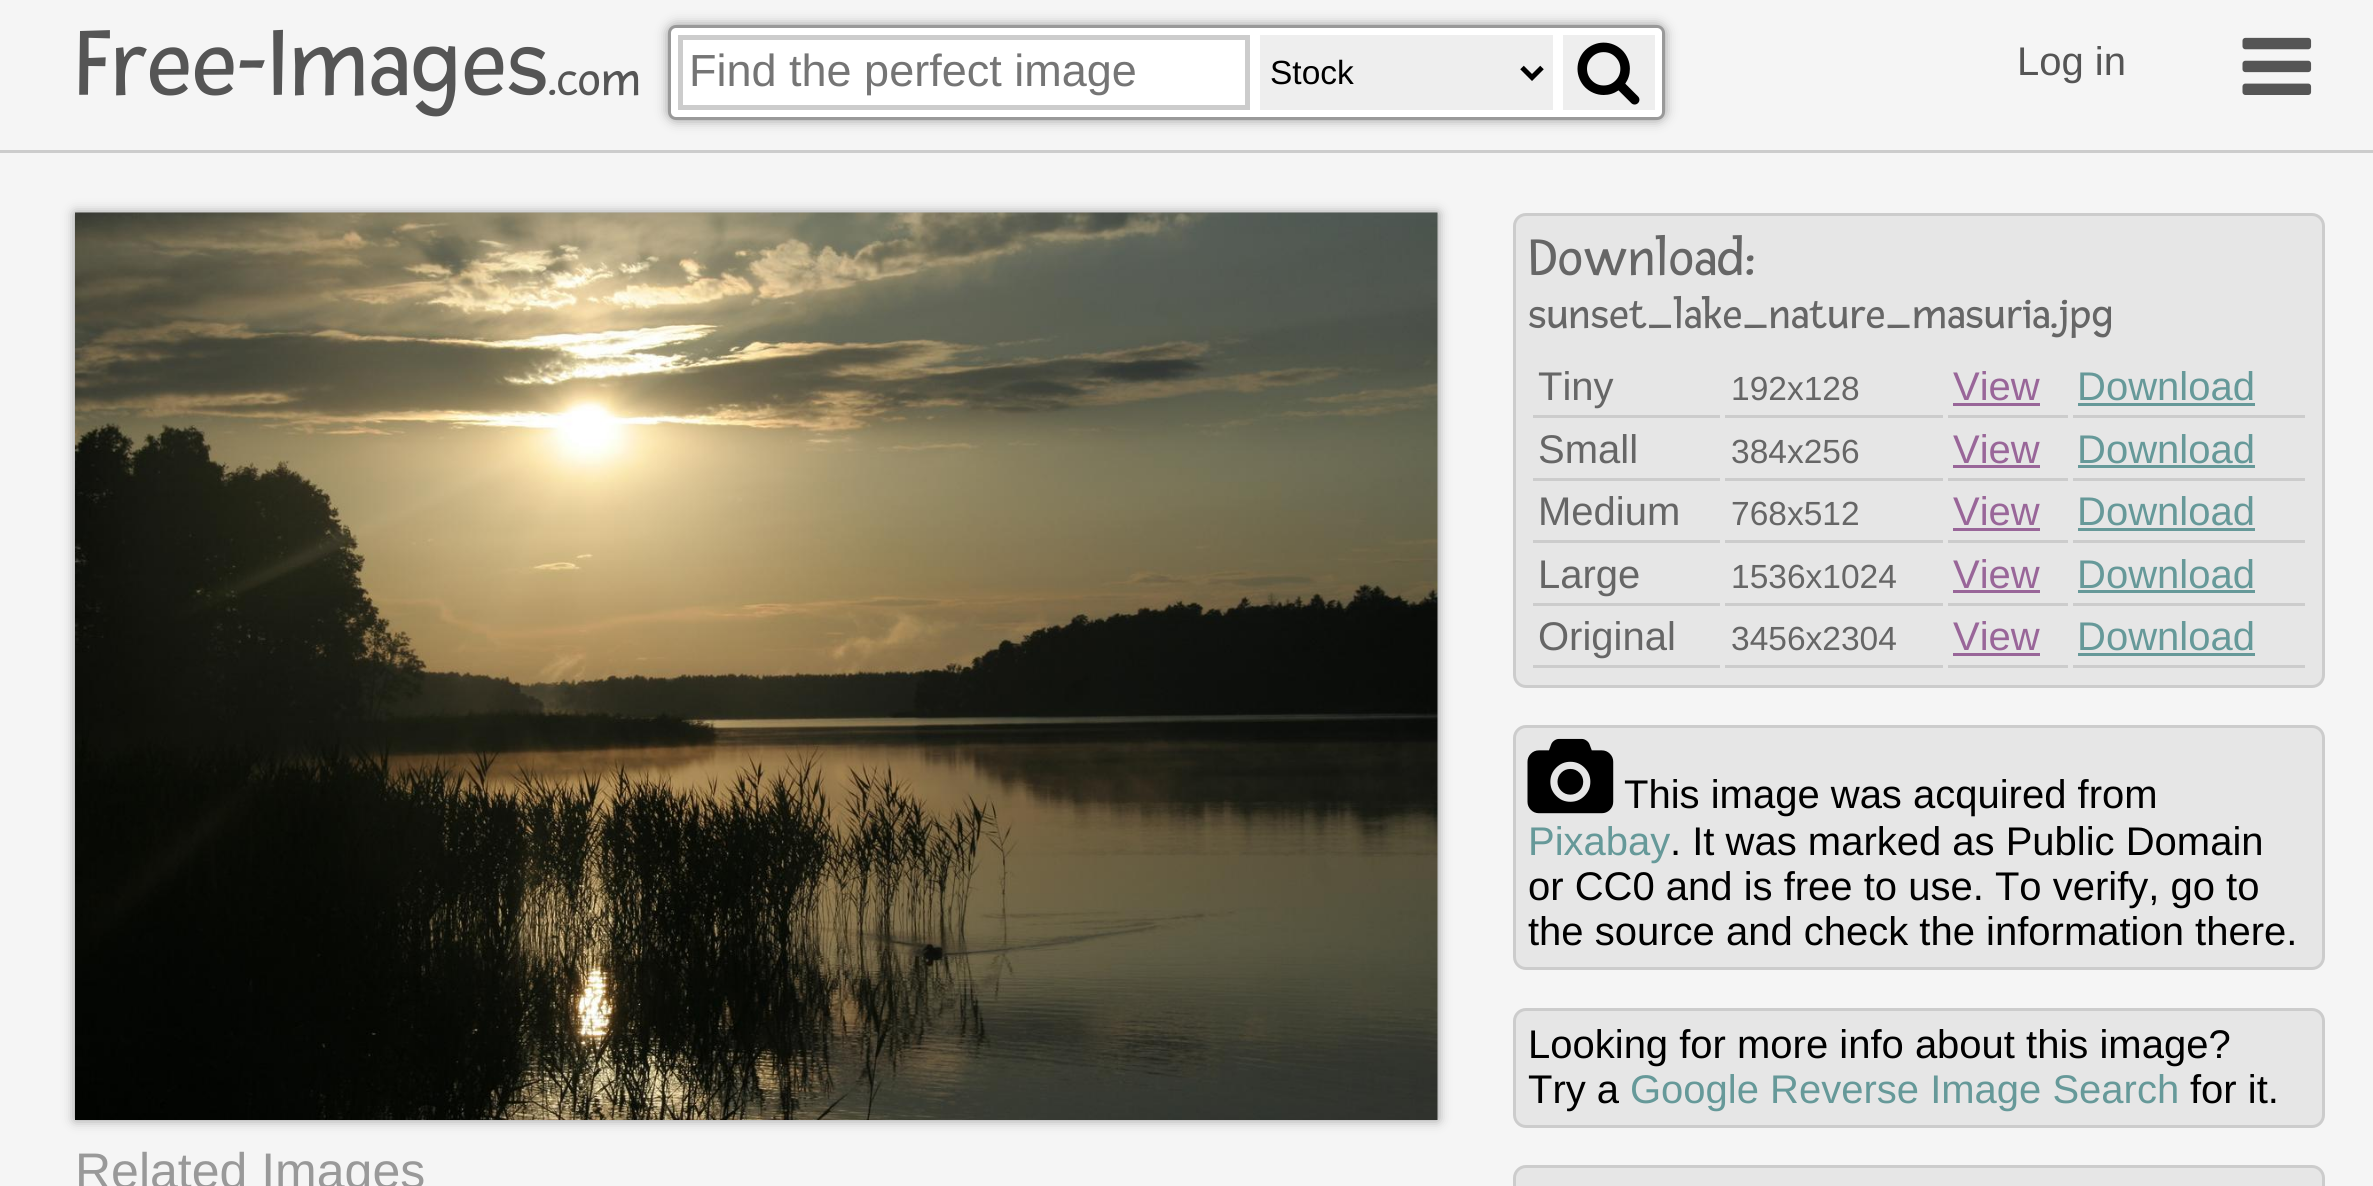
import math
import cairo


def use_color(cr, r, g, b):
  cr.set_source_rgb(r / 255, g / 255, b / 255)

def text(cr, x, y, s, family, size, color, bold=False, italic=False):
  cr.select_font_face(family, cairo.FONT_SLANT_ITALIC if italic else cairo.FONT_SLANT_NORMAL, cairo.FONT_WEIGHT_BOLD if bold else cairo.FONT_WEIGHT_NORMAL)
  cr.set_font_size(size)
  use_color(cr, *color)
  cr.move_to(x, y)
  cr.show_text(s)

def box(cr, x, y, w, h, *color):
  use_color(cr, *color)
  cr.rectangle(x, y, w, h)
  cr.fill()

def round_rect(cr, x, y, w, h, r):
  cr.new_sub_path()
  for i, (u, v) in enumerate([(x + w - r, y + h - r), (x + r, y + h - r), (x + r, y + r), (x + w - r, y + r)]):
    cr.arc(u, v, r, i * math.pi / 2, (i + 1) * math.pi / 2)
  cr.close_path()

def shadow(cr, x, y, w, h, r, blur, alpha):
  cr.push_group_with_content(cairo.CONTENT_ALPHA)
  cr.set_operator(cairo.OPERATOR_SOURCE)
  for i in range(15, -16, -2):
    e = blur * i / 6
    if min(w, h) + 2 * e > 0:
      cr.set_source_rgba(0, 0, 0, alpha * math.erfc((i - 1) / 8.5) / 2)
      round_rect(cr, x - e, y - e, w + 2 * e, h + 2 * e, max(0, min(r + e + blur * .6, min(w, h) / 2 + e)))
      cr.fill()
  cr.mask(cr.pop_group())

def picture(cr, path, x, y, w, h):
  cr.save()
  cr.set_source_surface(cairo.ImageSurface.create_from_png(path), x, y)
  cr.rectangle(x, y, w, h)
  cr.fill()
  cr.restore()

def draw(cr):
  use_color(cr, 245, 245, 245)
  cr.paint()
  box(cr, 0, 150, 2373, 3, 204, 204, 204)
  use_color(cr, 153, 153, 153)
  shadow(cr, 668, 25, 997, 95, 8, 6, 1)
  use_color(cr, 255, 255, 255)
  round_rect(cr, 669.5, 26.5, 994, 92, 6.5)
  cr.fill_preserve()
  use_color(cr, 153, 153, 153)
  cr.set_line_width(3)
  cr.stroke()
  cr.rectangle(680.5, 37.5, 567, 70)
  use_color(cr, 204, 204, 204)
  cr.set_line_width(5)
  cr.stroke()
  box(cr, 1260, 35, 293, 75, 238, 238, 238)
  cr.new_path()
  cr.move_to(1522, 67.5)
  cr.line_to(1532, 77.5)
  cr.line_to(1542, 67.5)
  use_color(cr, 0, 0, 0)
  cr.stroke()
  box(cr, 1563, 35, 92, 75, 238, 238, 238)
  picture(cr, "img_01.png", 1577, 42, 63, 63)
  picture(cr, "img_02.png", 2242, 37, 70, 58)
  use_color(cr, 230, 230, 230)
  round_rect(cr, 1514.5, 214.5, 809, 472, 11.5)
  cr.fill_preserve()
  use_color(cr, 204, 204, 204)
  cr.set_line_width(3)
  cr.stroke()
  box(cr, 1533, 415, 187, 3, 204, 204, 204)
  box(cr, 1725, 415, 218, 3, 204, 204, 204)
  box(cr, 1948, 415, 120, 3, 204, 204, 204)
  box(cr, 1953, 403, 87, 3, 153, 102, 153)
  box(cr, 2073, 415, 232, 3, 204, 204, 204)
  box(cr, 2078, 403, 177, 3, 102, 153, 153)
  box(cr, 1533, 478, 187, 3, 204, 204, 204)
  box(cr, 1725, 478, 218, 3, 204, 204, 204)
  box(cr, 1948, 478, 120, 3, 204, 204, 204)
  box(cr, 1953, 465, 87, 3, 153, 102, 153)
  box(cr, 2073, 478, 232, 3, 204, 204, 204)
  box(cr, 2078, 465, 177, 3, 102, 153, 153)
  box(cr, 1533, 540, 187, 3, 204, 204, 204)
  box(cr, 1725, 540, 218, 3, 204, 204, 204)
  box(cr, 1948, 540, 120, 3, 204, 204, 204)
  box(cr, 1953, 528, 87, 3, 153, 102, 153)
  box(cr, 2073, 540, 232, 3, 204, 204, 204)
  box(cr, 2078, 528, 177, 3, 102, 153, 153)
  box(cr, 1533, 603, 187, 3, 204, 204, 204)
  box(cr, 1725, 603, 218, 3, 204, 204, 204)
  box(cr, 1948, 603, 120, 3, 204, 204, 204)
  box(cr, 1953, 590, 87, 3, 153, 102, 153)
  box(cr, 2073, 603, 232, 3, 204, 204, 204)
  box(cr, 2078, 590, 177, 3, 102, 153, 153)
  box(cr, 1533, 665, 187, 3, 204, 204, 204)
  box(cr, 1725, 665, 218, 3, 204, 204, 204)
  box(cr, 1948, 665, 120, 3, 204, 204, 204)
  box(cr, 1953, 653, 87, 3, 153, 102, 153)
  box(cr, 2073, 665, 232, 3, 204, 204, 204)
  box(cr, 2078, 653, 177, 3, 102, 153, 153)
  use_color(cr, 230, 230, 230)
  round_rect(cr, 1514.5, 726.5, 809, 242, 11.5)
  cr.fill_preserve()
  use_color(cr, 204, 204, 204)
  cr.stroke()
  picture(cr, "img_03.png", 1527, 738, 87, 76)
  use_color(cr, 230, 230, 230)
  round_rect(cr, 1514.5, 1009.5, 809, 117, 11.5)
  cr.fill_preserve()
  use_color(cr, 204, 204, 204)
  cr.stroke()
  use_color(cr, 230, 230, 230)
  round_rect(cr, 1514.5, 1166.5, 809, 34, 11.5)
  cr.fill_preserve()
  use_color(cr, 204, 204, 204)
  cr.stroke()
  use_color(cr, 153, 153, 153)
  shadow(cr, 75, 213, 1363, 907, 0, 6, 1)
  picture(cr, "img_04.png", 75, 212, 1363, 908)
  text(cr, 75, 95, "Free-Images", "Fresca", 100, (85, 85, 85))
  text(cr, 548, 95, ".com", "Fresca", 50, (85, 85, 85))
  text(cr, 689, 86, "Find the perfect image", "Liberation Sans", 45, (117, 117, 117))
  text(cr, 1270, 84, "Stock", "Liberation Sans", 33.5, (0, 0, 0))
  text(cr, 2017, 75, "Log in", "Liberation Sans", 40, (85, 85, 85))
  text(cr, 1528, 275, "Download:", "Fresca", 55, (102, 102, 102))
  text(cr, 1528, 328, "sunset_lake_nature_masuria.jpg", "Fresca", 44, (102, 102, 102))
  text(cr, 1538, 400, "Tiny", "Liberation Sans", 40, (102, 102, 102))
  text(cr, 1731, 400, "192x128", "Liberation Sans", 33.5, (102, 102, 102))
  text(cr, 1953, 400, "View", "Liberation Sans", 40, (153, 102, 153))
  text(cr, 2077, 400, "Download", "Liberation Sans", 40, (102, 153, 153))
  text(cr, 1538, 463, "Small", "Liberation Sans", 40, (102, 102, 102))
  text(cr, 1731, 463, "384x256", "Liberation Sans", 33.5, (102, 102, 102))
  text(cr, 1953, 463, "View", "Liberation Sans", 40, (153, 102, 153))
  text(cr, 2077, 463, "Download", "Liberation Sans", 40, (102, 153, 153))
  text(cr, 1538, 525, "Medium", "Liberation Sans", 40, (102, 102, 102))
  text(cr, 1731, 525, "768x512", "Liberation Sans", 33.5, (102, 102, 102))
  text(cr, 1953, 525, "View", "Liberation Sans", 40, (153, 102, 153))
  text(cr, 2077, 525, "Download", "Liberation Sans", 40, (102, 153, 153))
  text(cr, 1538, 588, "Large", "Liberation Sans", 40, (102, 102, 102))
  text(cr, 1731, 588, "1536x1024", "Liberation Sans", 33.5, (102, 102, 102))
  text(cr, 1953, 588, "View", "Liberation Sans", 40, (153, 102, 153))
  text(cr, 2077, 588, "Download", "Liberation Sans", 40, (102, 153, 153))
  text(cr, 1538, 650, "Original", "Liberation Sans", 40, (102, 102, 102))
  text(cr, 1731, 650, "3456x2304", "Liberation Sans", 33.5, (102, 102, 102))
  text(cr, 1953, 650, "View", "Liberation Sans", 40, (153, 102, 153))
  text(cr, 2077, 650, "Download", "Liberation Sans", 40, (102, 153, 153))
  text(cr, 1624, 808, "This image was acquired from", "Liberation Sans", 40, (0, 0, 0))
  text(cr, 1528, 855, "Pixabay", "Liberation Sans", 40, (102, 153, 153))
  text(cr, 1670, 855, ". It was marked as Public Domain", "Liberation Sans", 40, (0, 0, 0))
  text(cr, 1528, 900, "or CC0 and is free to use. To verify, go to", "Liberation Sans", 40, (0, 0, 0))
  text(cr, 1528, 945, "the source and check the information there.", "Liberation Sans", 40, (0, 0, 0))
  text(cr, 1528, 1058, "Looking for more info about this image?", "Liberation Sans", 40, (0, 0, 0))
  text(cr, 1528, 1103, "Try a", "Liberation Sans", 40, (0, 0, 0))
  text(cr, 1630, 1103, "Google Reverse Image Search", "Liberation Sans", 40, (102, 153, 153))
  text(cr, 2190, 1103, "for it.", "Liberation Sans", 40, (0, 0, 0))
  text(cr, 75, 1188, "Related Images", "Liberation Sans", 50, (153, 153, 153))


surface = cairo.ImageSurface(cairo.FORMAT_RGB24, 2373, 1186)
cr = cairo.Context(surface)
options = cairo.FontOptions()
options.set_hint_metrics(cairo.HINT_METRICS_OFF)
options.set_hint_style(cairo.HINT_STYLE_NONE)
cr.set_font_options(options)
cr.set_miter_limit(4)
draw(cr)
surface.write_to_png("out.png")
